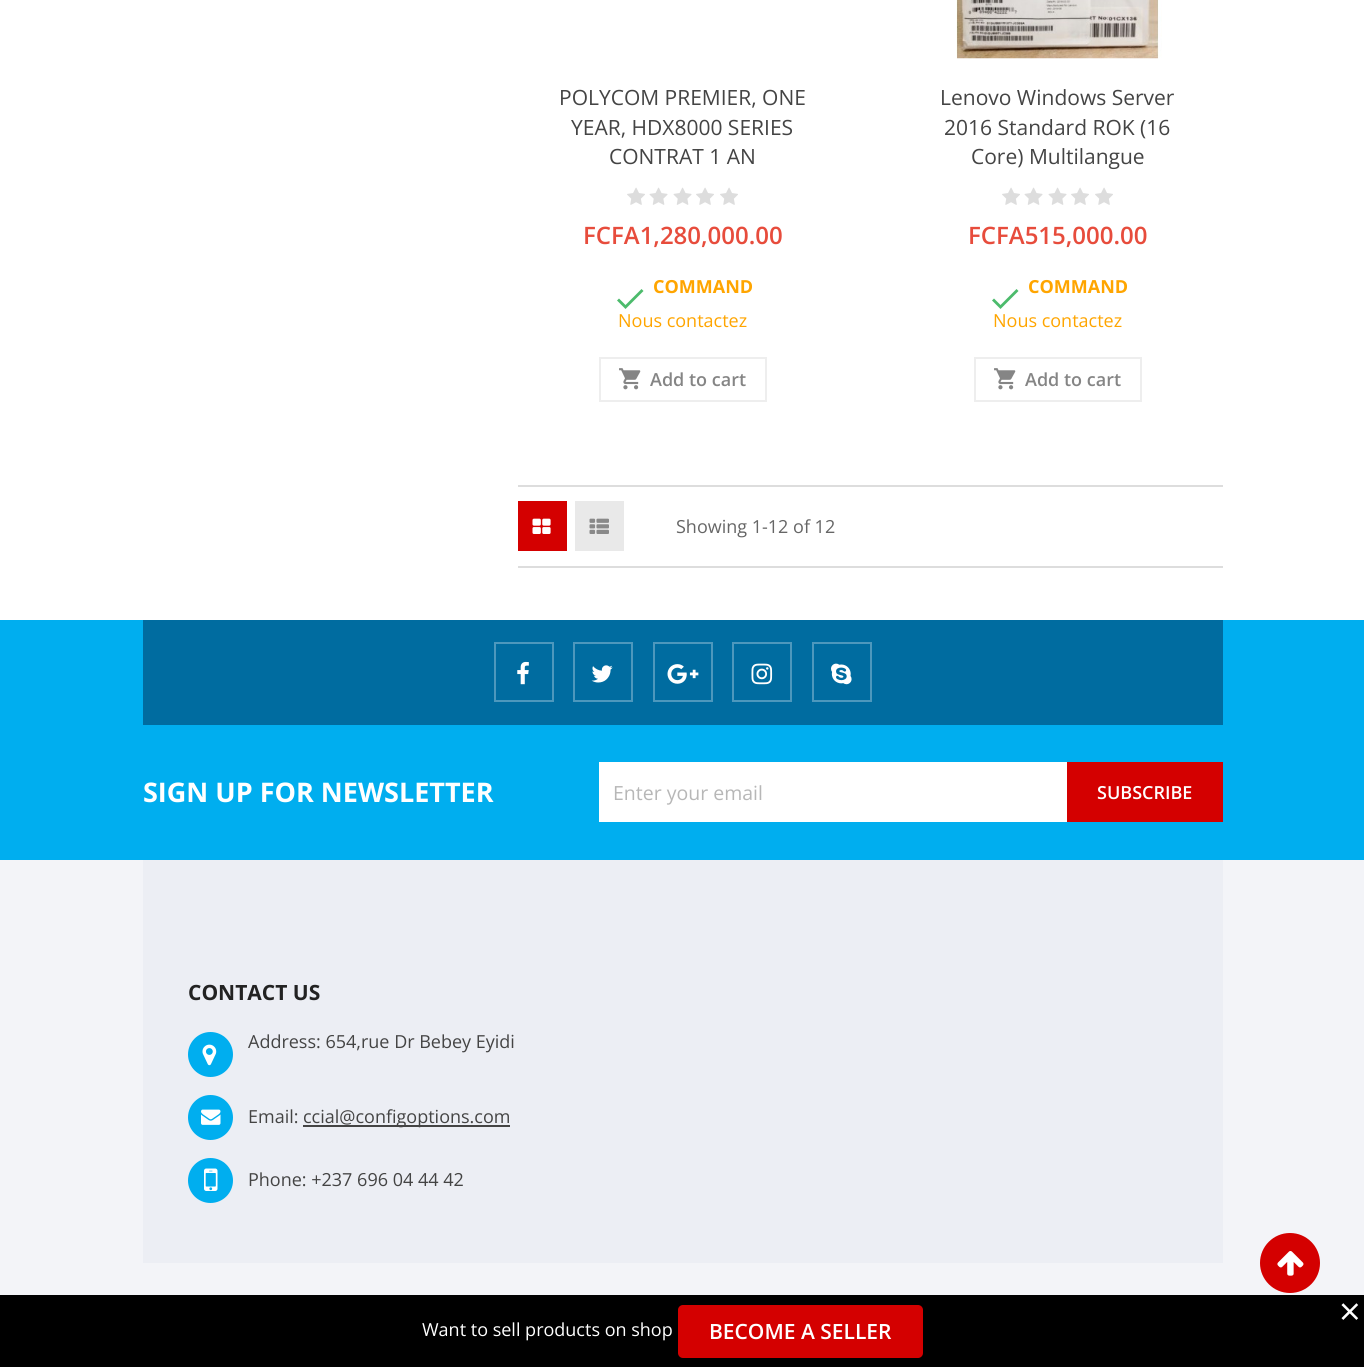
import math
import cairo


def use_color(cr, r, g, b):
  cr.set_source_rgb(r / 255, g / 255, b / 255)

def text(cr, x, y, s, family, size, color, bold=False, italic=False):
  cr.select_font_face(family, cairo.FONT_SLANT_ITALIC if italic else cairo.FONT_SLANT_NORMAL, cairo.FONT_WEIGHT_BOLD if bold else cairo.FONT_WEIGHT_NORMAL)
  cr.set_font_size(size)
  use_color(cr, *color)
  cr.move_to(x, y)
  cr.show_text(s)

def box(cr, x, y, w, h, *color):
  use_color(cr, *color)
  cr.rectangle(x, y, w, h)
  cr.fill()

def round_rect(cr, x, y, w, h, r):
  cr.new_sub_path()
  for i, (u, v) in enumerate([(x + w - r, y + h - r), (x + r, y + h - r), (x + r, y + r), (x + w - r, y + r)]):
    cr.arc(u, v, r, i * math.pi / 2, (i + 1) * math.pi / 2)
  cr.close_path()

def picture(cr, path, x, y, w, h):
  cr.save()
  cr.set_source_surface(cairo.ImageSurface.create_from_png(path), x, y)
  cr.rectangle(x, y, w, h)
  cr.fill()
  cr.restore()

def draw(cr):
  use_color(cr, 255, 255, 255)
  cr.paint()
  picture(cr, "img_01.png", 627, 187, 18, 18)
  picture(cr, "img_02.png", 649, 187, 19, 18)
  picture(cr, "img_02.png", 673, 187, 19, 18)
  picture(cr, "img_01.png", 696, 187, 18, 18)
  picture(cr, "img_01.png", 720, 187, 18, 18)
  use_color(cr, 76, 187, 108)
  cr.new_path()
  cr.move_to(625.5, 305)
  cr.line_to(641.5, 289)
  cr.line_to(643.5, 291)
  cr.line_to(625.5, 309)
  cr.line_to(617, 300.5)
  cr.line_to(619, 298.5)
  cr.close_path()
  cr.fill()
  cr.rectangle(600, 358, 166, 43)
  use_color(cr, 238, 238, 238)
  cr.stroke()
  picture(cr, "img_03.png", 619, 368, 22, 22)
  picture(cr, "img_04.png", 956, 0, 206, 59)
  picture(cr, "img_01.png", 1002, 187, 18, 18)
  picture(cr, "img_02.png", 1024, 187, 19, 18)
  picture(cr, "img_02.png", 1048, 187, 19, 18)
  picture(cr, "img_01.png", 1071, 187, 18, 18)
  picture(cr, "img_01.png", 1095, 187, 18, 18)
  use_color(cr, 76, 187, 108)
  cr.new_path()
  cr.move_to(1000.5, 305)
  cr.line_to(1016.5, 289)
  cr.line_to(1018.5, 291)
  cr.line_to(1000.5, 309)
  cr.line_to(992, 300.5)
  cr.line_to(994, 298.5)
  cr.close_path()
  cr.fill()
  cr.rectangle(975, 358, 166, 43)
  use_color(cr, 238, 238, 238)
  cr.stroke()
  picture(cr, "img_03.png", 994, 368, 22, 22)
  box(cr, 518, 485, 705, 2, 221, 221, 221)
  box(cr, 518, 566, 705, 2, 221, 221, 221)
  box(cr, 518, 501, 49, 50, 212, 0, 0)
  picture(cr, "img_05.png", 532, 518, 19, 16)
  box(cr, 575, 501, 49, 50, 233, 233, 233)
  picture(cr, "img_06.png", 589, 518, 20, 16)
  box(cr, 0, 620, 1364, 240, 0, 174, 239)
  box(cr, 143, 620, 1080, 105, 0, 108, 160)
  cr.rectangle(495, 643, 58, 58)
  use_color(cr, 77, 152, 189)
  cr.stroke()
  picture(cr, "img_07.png", 517, 661, 12, 24)
  cr.rectangle(574, 643, 58, 58)
  cr.stroke()
  picture(cr, "img_08.png", 591, 665, 22, 18)
  cr.rectangle(654, 643, 58, 58)
  cr.stroke()
  picture(cr, "img_09.png", 667, 664, 32, 20)
  cr.rectangle(733, 643, 58, 58)
  cr.stroke()
  picture(cr, "img_10.png", 751, 663, 22, 22)
  cr.rectangle(813, 643, 58, 58)
  cr.stroke()
  picture(cr, "img_11.png", 831, 663, 21, 22)
  box(cr, 599, 762, 468, 60, 255, 255, 255)
  box(cr, 1067, 762, 156, 60, 212, 0, 0)
  box(cr, 0, 860, 1364, 435, 243, 244, 248)
  box(cr, 143, 860, 1080, 403, 236, 238, 244)
  use_color(cr, 0, 174, 239)
  cr.arc(210.5, 1054.5, 22.5, 0, 2 * math.pi)
  cr.fill()
  picture(cr, "img_12.png", 202, 1044, 15, 22)
  cr.arc(210.5, 1117.5, 22.5, 0, 2 * math.pi)
  cr.fill()
  picture(cr, "img_13.png", 201, 1109, 20, 16)
  box(cr, 303, 1125, 207, 2, 68, 68, 68)
  use_color(cr, 0, 174, 239)
  cr.arc(210.5, 1180.5, 22.5, 0, 2 * math.pi)
  cr.fill()
  picture(cr, "img_14.png", 204, 1168, 14, 23)
  use_color(cr, 212, 0, 0)
  cr.arc(1290, 1263, 30, 0, 2 * math.pi)
  cr.fill()
  picture(cr, "img_15.png", 1277, 1251, 27, 25)
  box(cr, 0, 1295, 1364, 72, 0, 0, 0)
  use_color(cr, 212, 0, 0)
  round_rect(cr, 678, 1305, 245, 53, 5)
  cr.fill()
  text(cr, 559, 105, "POLYCOM PREMIER, ONE", "Open Sans", 21, (68, 68, 68))
  text(cr, 571, 135, "YEAR, HDX8000 SERIES", "Open Sans", 21, (68, 68, 68))
  text(cr, 609, 164, "CONTRAT 1 AN", "Open Sans", 21, (68, 68, 68))
  text(cr, 583, 244, "FCFA1,280,000.00", "Open Sans SemiBold", 24, (231, 76, 60))
  text(cr, 653, 293, "COMMAND", "Open Sans", 18, (255, 165, 0), bold=True)
  text(cr, 618, 327, "Nous contactez", "Open Sans", 18, (255, 165, 0))
  text(cr, 650, 386, "Add to cart", "Open Sans SemiBold", 18, (133, 133, 133))
  text(cr, 940, 105, "Lenovo Windows Server", "Open Sans", 21, (68, 68, 68))
  text(cr, 944, 135, "2016 Standard ROK (16", "Open Sans", 21, (68, 68, 68))
  text(cr, 971, 164, "Core) Multilangue", "Open Sans", 21, (68, 68, 68))
  text(cr, 968, 244, "FCFA515,000.00", "Open Sans SemiBold", 24, (231, 76, 60))
  text(cr, 1028, 293, "COMMAND", "Open Sans", 18, (255, 165, 0), bold=True)
  text(cr, 993, 327, "Nous contactez", "Open Sans", 18, (255, 165, 0))
  text(cr, 1025, 386, "Add to cart", "Open Sans SemiBold", 18, (133, 133, 133))
  text(cr, 676, 533, "Showing 1-12 of 12", "Open Sans", 18, (102, 102, 102))
  text(cr, 143, 802, "SIGN UP FOR NEWSLETTER", "Open Sans", 27, (255, 255, 255), bold=True)
  text(cr, 613, 800, "Enter your email", "Open Sans", 19.5, (183, 183, 183))
  text(cr, 1097, 799, "SUBSCRIBE", "Open Sans SemiBold", 18, (255, 255, 255))
  text(cr, 188, 1000, "CONTACT US", "Open Sans", 21, (34, 34, 34), bold=True)
  text(cr, 248, 1048, "Address: 654,rue Dr Bebey Eyidi", "Open Sans", 18, (68, 68, 68))
  text(cr, 248, 1123, "Email:", "Open Sans", 18, (68, 68, 68))
  text(cr, 303, 1123, "ccial@configoptions.com", "Open Sans", 18, (68, 68, 68))
  text(cr, 248, 1186, "Phone: +237 696 04 44 42", "Open Sans", 18, (68, 68, 68))
  text(cr, 1339, 1325, "×", "Open Sans", 38, (255, 255, 255))
  text(cr, 422, 1336, "Want to sell products on shop", "Open Sans", 18, (255, 255, 255))
  text(cr, 709, 1339, "BECOME A SELLER", "Open Sans SemiBold", 21, (255, 255, 255))


surface = cairo.ImageSurface(cairo.FORMAT_RGB24, 1364, 1367)
cr = cairo.Context(surface)
options = cairo.FontOptions()
options.set_hint_metrics(cairo.HINT_METRICS_OFF)
options.set_hint_style(cairo.HINT_STYLE_NONE)
cr.set_font_options(options)
cr.set_miter_limit(4)
draw(cr)
surface.write_to_png("out.png")
